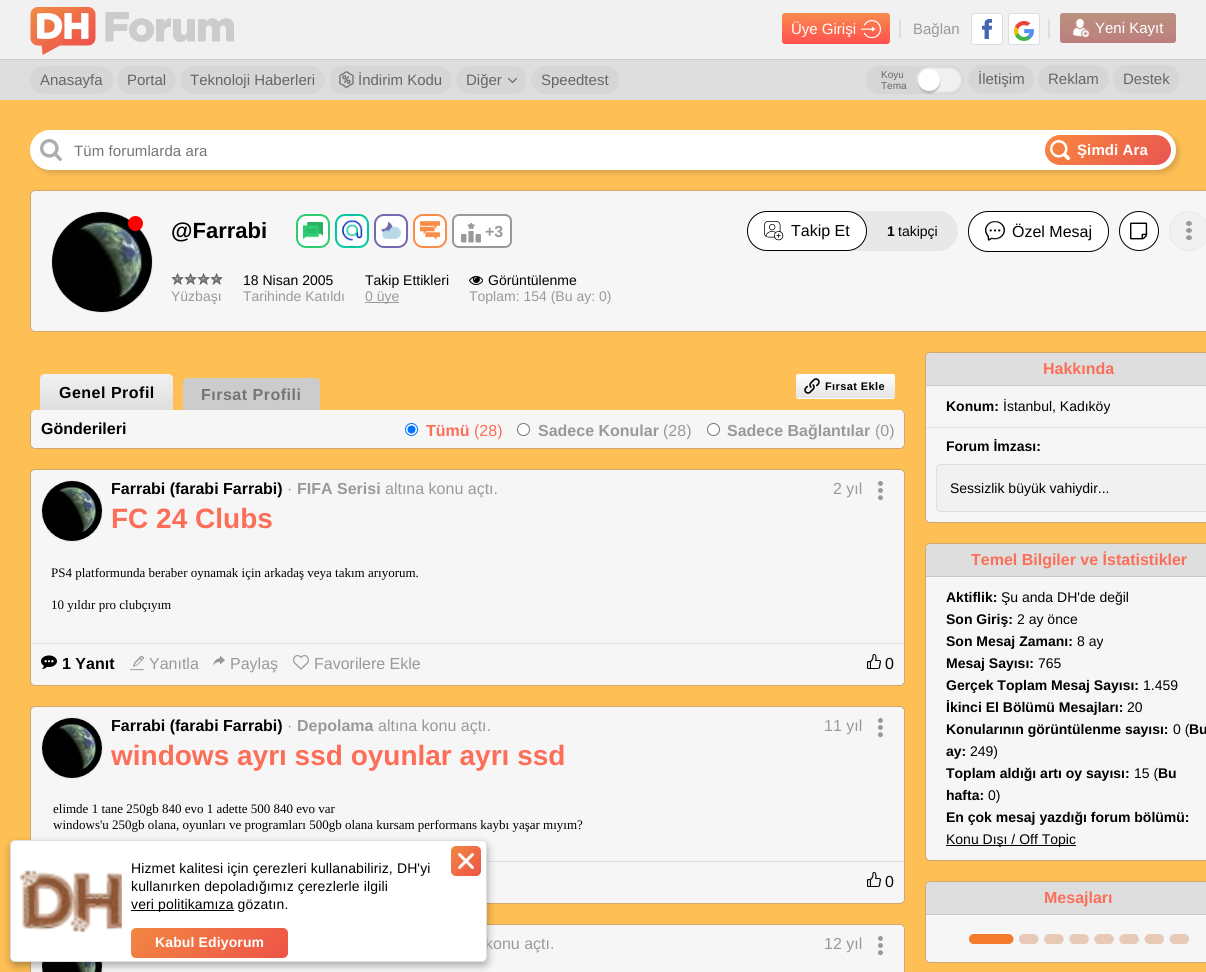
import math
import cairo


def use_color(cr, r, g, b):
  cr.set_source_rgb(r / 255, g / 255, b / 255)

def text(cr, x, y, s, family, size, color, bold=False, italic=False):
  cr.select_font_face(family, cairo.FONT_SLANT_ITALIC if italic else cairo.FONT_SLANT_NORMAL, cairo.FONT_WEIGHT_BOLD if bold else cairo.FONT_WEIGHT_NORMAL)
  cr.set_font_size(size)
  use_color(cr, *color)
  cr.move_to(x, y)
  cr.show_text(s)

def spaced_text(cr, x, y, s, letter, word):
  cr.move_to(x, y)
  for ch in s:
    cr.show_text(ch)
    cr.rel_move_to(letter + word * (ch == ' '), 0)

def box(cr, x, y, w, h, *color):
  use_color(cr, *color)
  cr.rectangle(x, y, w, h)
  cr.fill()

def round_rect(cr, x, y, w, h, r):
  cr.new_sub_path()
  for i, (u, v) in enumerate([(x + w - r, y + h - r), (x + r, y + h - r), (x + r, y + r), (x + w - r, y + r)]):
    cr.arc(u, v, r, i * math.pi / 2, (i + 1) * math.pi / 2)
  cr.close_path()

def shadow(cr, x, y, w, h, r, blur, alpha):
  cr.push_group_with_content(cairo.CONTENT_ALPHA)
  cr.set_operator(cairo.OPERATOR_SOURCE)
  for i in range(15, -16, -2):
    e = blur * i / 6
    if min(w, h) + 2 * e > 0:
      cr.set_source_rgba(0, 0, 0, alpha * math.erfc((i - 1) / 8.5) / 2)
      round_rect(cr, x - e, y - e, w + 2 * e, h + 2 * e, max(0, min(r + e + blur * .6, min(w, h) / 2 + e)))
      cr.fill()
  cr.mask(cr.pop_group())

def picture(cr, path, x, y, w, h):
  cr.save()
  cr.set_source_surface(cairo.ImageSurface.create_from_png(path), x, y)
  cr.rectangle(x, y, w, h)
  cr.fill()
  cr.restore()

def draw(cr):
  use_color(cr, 254, 191, 85)
  cr.paint()
  box(cr, 0, 0, 1206, 59, 241, 241, 241)
  box(cr, 0, 59, 1206, 1, 204, 204, 204)
  picture(cr, "img_01.png", 30, 7, 66, 48)
  picture(cr, "img_02.png", 105, 12, 129, 30)
  gradient = cairo.LinearGradient(836, 44, 836, 13)
  gradient.add_color_stop_rgba(0, 1, 0.31, 0.31, 1)
  gradient.add_color_stop_rgba(1, 0.973, 0.549, 0.306, 1)
  cr.set_source(gradient)
  round_rect(cr, 782, 13, 108, 31, 3)
  cr.fill()
  picture(cr, "img_03.png", 861, 20, 20, 18)
  use_color(cr, 222, 222, 222)
  round_rect(cr, 899, 19, 2, 19, 1)
  cr.fill()
  use_color(cr, 255, 255, 255)
  round_rect(cr, 971.5, 13.5, 31, 31, 2.5)
  cr.fill_preserve()
  use_color(cr, 221, 221, 221)
  cr.set_line_width(1)
  cr.stroke()
  picture(cr, "img_04.png", 982, 19, 10, 20)
  use_color(cr, 255, 255, 255)
  round_rect(cr, 1008.5, 13.5, 31, 31, 2.5)
  cr.fill_preserve()
  use_color(cr, 221, 221, 221)
  cr.stroke()
  picture(cr, "img_05.png", 1014, 21, 20, 20)
  use_color(cr, 222, 222, 222)
  round_rect(cr, 1048, 19, 2, 20, 1)
  cr.fill()
  use_color(cr, 161, 147, 147)
  round_rect(cr, 1060, 13, 116, 30, 3)
  cr.fill()
  gradient = cairo.LinearGradient(1118, 43, 1118, 13)
  gradient.add_color_stop_rgba(0, 1, 0.31, 0.31, 0.3)
  gradient.add_color_stop_rgba(1, 0.973, 0.549, 0.306, 0.3)
  cr.set_source(gradient)
  round_rect(cr, 1060, 13, 116, 30, 3)
  cr.fill()
  picture(cr, "img_06.png", 1073, 19, 17, 18)
  box(cr, 0, 60, 1206, 40, 222, 222, 222)
  use_color(cr, 214, 214, 214)
  round_rect(cr, 30, 66, 83, 28, 14)
  cr.fill()
  round_rect(cr, 117, 66, 59, 28, 14)
  cr.fill()
  round_rect(cr, 180, 66, 145, 28, 14)
  cr.fill()
  round_rect(cr, 329, 66, 123, 28, 14)
  cr.fill()
  picture(cr, "img_07.png", 339, 71, 15, 17)
  round_rect(cr, 456, 66, 71, 28, 14)
  cr.fill()
  picture(cr, "img_08.png", 508, 78, 9, 5)
  round_rect(cr, 531, 66, 88, 28, 14)
  cr.fill()
  round_rect(cr, 866, 66, 98, 28, 14)
  cr.fill()
  use_color(cr, 230, 230, 230)
  round_rect(cr, 916, 67, 46, 26, 13)
  cr.fill()
  use_color(cr, 241, 241, 241)
  round_rect(cr, 918, 69, 42, 22, 11)
  cr.fill()
  use_color(cr, 0, 0, 0)
  shadow(cr, 918, 71, 22, 22, 11, 1, 0.24)
  use_color(cr, 255, 255, 255)
  cr.arc(929, 80, 11, 0, 2 * math.pi)
  cr.fill()
  use_color(cr, 214, 214, 214)
  round_rect(cr, 968, 65, 66, 28, 14)
  cr.fill()
  round_rect(cr, 1038, 65, 71, 28, 14)
  cr.fill()
  round_rect(cr, 1113, 65, 67, 28, 14)
  cr.fill()
  use_color(cr, 0, 0, 0)
  shadow(cr, 33, 133, 1146, 40, 20, 2.5, 0.15)
  use_color(cr, 255, 255, 255)
  round_rect(cr, 30, 130, 1146, 40, 20)
  cr.fill()
  picture(cr, "img_09.png", 40, 139, 22, 22)
  gradient = cairo.LinearGradient(1069, 111, 1147, 189)
  gradient.add_color_stop_rgba(0, 0.976, 0.537, 0.247, 1)
  gradient.add_color_stop_rgba(1, 0.914, 0.329, 0.314, 1)
  cr.set_source(gradient)
  round_rect(cr, 1045, 135, 126, 30, 15)
  cr.fill()
  picture(cr, "img_10.png", 1050, 140, 20, 20)
  use_color(cr, 246, 246, 246)
  round_rect(cr, 30.5, 190.5, 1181, 141, 4.5)
  cr.fill_preserve()
  use_color(cr, 208, 168, 108)
  cr.stroke()
  use_color(cr, 255, 255, 255)
  cr.arc(101, 261, 50, 0, 2 * math.pi)
  cr.fill()
  cr.arc(102, 262, 50.5, 0, 2 * math.pi)
  use_color(cr, 232, 232, 232)
  cr.stroke()
  picture(cr, "img_11.png", 52, 212, 100, 100)
  use_color(cr, 255, 0, 0)
  cr.arc(135.5, 223.5, 7.5, 0, 2 * math.pi)
  cr.fill()
  use_color(cr, 255, 255, 255)
  round_rect(cr, 297, 215, 32, 32, 9)
  cr.fill_preserve()
  use_color(cr, 46, 203, 113)
  cr.set_line_width(2)
  cr.stroke()
  picture(cr, "img_12.png", 303, 222, 20, 17)
  use_color(cr, 255, 255, 255)
  round_rect(cr, 336, 215, 32, 32, 9)
  cr.fill_preserve()
  use_color(cr, 0, 200, 159)
  cr.stroke()
  picture(cr, "img_13.png", 342, 220, 21, 21)
  use_color(cr, 255, 255, 255)
  round_rect(cr, 375, 215, 32, 32, 9)
  cr.fill_preserve()
  use_color(cr, 114, 105, 175)
  cr.stroke()
  picture(cr, "img_14.png", 381, 222, 20, 17)
  use_color(cr, 255, 255, 255)
  round_rect(cr, 414, 215, 32, 32, 9)
  cr.fill_preserve()
  use_color(cr, 247, 141, 73)
  cr.stroke()
  picture(cr, "img_15.png", 420, 221, 20, 20)
  use_color(cr, 255, 255, 255)
  round_rect(cr, 453, 215, 58, 32, 6)
  cr.fill_preserve()
  use_color(cr, 153, 153, 153)
  cr.stroke()
  cr.save()
  cr.rectangle(461, 223, 20, 20)
  cr.clip()
  cr.set_fill_rule(cairo.FILL_RULE_EVEN_ODD)
  cr.new_path()
  cr.move_to(465.5, 234)
  cr.curve_to(460.5, 234, 461, 233, 461, 238)
  cr.curve_to(461, 243, 460.5, 242.5, 465.5, 242.5)
  cr.curve_to(467, 242.5, 466.5, 239, 466.5, 238)
  cr.curve_to(466.5, 237.5, 467, 234, 465.5, 234)
  cr.close_path()
  cr.move_to(480, 234)
  cr.curve_to(475, 234, 475.5, 233, 475.5, 238)
  cr.curve_to(475.5, 243, 475, 242.5, 480, 242.5)
  cr.curve_to(482, 242.5, 481, 239, 481, 238)
  cr.curve_to(481, 237.5, 481.5, 234, 480, 234)
  cr.close_path()
  cr.move_to(472, 223)
  cr.curve_to(473, 226, 474.5, 223.5, 475, 225)
  cr.curve_to(475, 226, 473.5, 226, 473.5, 226.5)
  cr.line_to(473.5, 228.5)
  cr.curve_to(473.5, 230, 471.5, 228.5, 471, 228.5)
  cr.line_to(469.5, 229)
  cr.curve_to(468, 230, 469, 227, 469, 227)
  cr.curve_to(469, 226, 467, 226, 467.5, 225)
  cr.curve_to(468, 223.5, 469.5, 226, 470.5, 223)
  cr.close_path()
  cr.move_to(473, 231)
  cr.curve_to(467, 231, 468.5, 230.5, 468.5, 237)
  cr.curve_to(468.5, 243, 467, 242.5, 473, 242.5)
  cr.curve_to(474.5, 242.5, 473.5, 238, 473.5, 237)
  cr.line_to(473.5, 233.5)
  cr.curve_to(473.5, 233, 474, 231, 473, 231)
  cr.close_path()
  cr.fill()
  cr.restore()
  use_color(cr, 232, 232, 232)
  round_rect(cr, 747, 211, 211, 40, 20)
  cr.fill()
  use_color(cr, 255, 255, 255)
  round_rect(cr, 747.5, 211.5, 119, 39, 19.5)
  cr.fill_preserve()
  use_color(cr, 0, 0, 0)
  cr.set_line_width(1)
  cr.stroke()
  picture(cr, "img_16.png", 764, 221, 20, 20)
  use_color(cr, 255, 255, 255)
  round_rect(cr, 968.5, 211.5, 140, 40, 19.5)
  cr.fill_preserve()
  use_color(cr, 0, 0, 0)
  cr.stroke()
  picture(cr, "img_17.png", 985, 221, 20, 20)
  use_color(cr, 255, 255, 255)
  cr.arc(1139, 231, 19.5, 0, 2 * math.pi)
  cr.fill_preserve()
  use_color(cr, 0, 0, 0)
  cr.stroke()
  picture(cr, "img_18.png", 1130, 222, 18, 18)
  use_color(cr, 241, 241, 241)
  cr.arc(1189, 231, 19.5, 0, 2 * math.pi)
  cr.fill_preserve()
  use_color(cr, 232, 232, 232)
  cr.stroke()
  picture(cr, "img_19.png", 1186, 221, 6, 20)
  picture(cr, "img_20.png", 171, 273, 52, 12)
  box(cr, 365, 302, 34, 1, 153, 153, 153)
  picture(cr, "img_21.png", 469, 276, 14, 9)
  gradient = cairo.LinearGradient(107, 374, 107, 411)
  gradient.add_color_stop_rgba(0, 0.945, 0.945, 0.945, 1)
  gradient.add_color_stop_rgba(1, 0.871, 0.871, 0.871, 1)
  cr.set_source(gradient)
  cr.new_path()
  cr.move_to(45, 374)
  cr.line_to(168, 374)
  cr.curve_to(171, 374, 173, 376, 173, 379)
  cr.line_to(173, 411)
  cr.line_to(40, 411)
  cr.line_to(40, 379)
  cr.curve_to(40, 376, 42, 374, 45, 374)
  cr.close_path()
  cr.fill()
  use_color(cr, 204, 204, 204)
  cr.new_path()
  cr.move_to(188, 378)
  cr.line_to(315, 378)
  cr.curve_to(318, 378, 320, 380, 320, 383)
  cr.line_to(320, 411)
  cr.line_to(183, 411)
  cr.line_to(183, 383)
  cr.curve_to(183, 380, 185, 378, 188, 378)
  cr.close_path()
  cr.fill()
  cr.save()
  round_rect(cr, 796, 374, 99, 25, 2)
  cr.clip()
  gradient = cairo.LinearGradient(846, 374, 846, 398)
  gradient.add_color_stop_rgba(0, 1, 1, 1, 1)
  gradient.add_color_stop_rgba(1, 0.898, 0.898, 0.898, 1)
  cr.set_source(gradient)
  cr.new_path()
  cr.move_to(798, 374)
  cr.line_to(893, 374)
  cr.curve_to(894, 374, 895, 375, 895, 376)
  cr.line_to(895, 398)
  cr.line_to(796, 398)
  cr.line_to(796, 376)
  cr.curve_to(796, 375, 797, 374, 798, 374)
  cr.close_path()
  cr.fill()
  cr.restore()
  box(cr, 797, 398, 97, 1, 255, 255, 255)
  picture(cr, "img_22.png", 804, 378, 16, 16)
  use_color(cr, 246, 246, 246)
  round_rect(cr, 30, 410, 875, 39, 5)
  cr.fill()
  use_color(cr, 208, 168, 108)
  cr.set_fill_rule(cairo.FILL_RULE_EVEN_ODD)
  cr.new_path()
  cr.move_to(35, 410)
  cr.line_to(900, 410)
  cr.curve_to(903, 410, 905, 412, 905, 415)
  cr.line_to(905, 444)
  cr.curve_to(905, 447, 903, 449, 900, 449)
  cr.line_to(35, 449)
  cr.curve_to(32, 449, 30, 447, 30, 444)
  cr.line_to(30, 415)
  cr.curve_to(30, 412, 32, 410, 35, 410)
  cr.close_path()
  cr.move_to(35, 410)
  cr.line_to(900, 410)
  cr.curve_to(902, 410, 904, 412, 904, 415)
  cr.line_to(904, 444)
  cr.curve_to(904, 446, 902, 448, 900, 448)
  cr.line_to(35, 448)
  cr.curve_to(33, 448, 31, 446, 31, 444)
  cr.line_to(31, 415)
  cr.curve_to(31, 412, 33, 410, 35, 410)
  cr.close_path()
  cr.fill()
  use_color(cr, 255, 255, 255)
  cr.arc(411.5, 429.5, 6, 0, 2 * math.pi)
  cr.fill_preserve()
  use_color(cr, 0, 117, 255)
  cr.stroke()
  cr.arc(411.5, 429.5, 4, 0, 2 * math.pi)
  cr.fill()
  use_color(cr, 255, 255, 255)
  cr.arc(523.5, 429.5, 6, 0, 2 * math.pi)
  cr.fill_preserve()
  use_color(cr, 118, 118, 118)
  cr.stroke()
  use_color(cr, 255, 255, 255)
  cr.arc(713.5, 429.5, 6, 0, 2 * math.pi)
  cr.fill_preserve()
  use_color(cr, 118, 118, 118)
  cr.stroke()
  use_color(cr, 246, 246, 246)
  round_rect(cr, 30.5, 469.5, 874, 216, 4.5)
  cr.fill_preserve()
  use_color(cr, 208, 168, 108)
  cr.stroke()
  use_color(cr, 255, 255, 255)
  cr.arc(71, 510, 30, 0, 2 * math.pi)
  cr.fill()
  cr.arc(72, 511, 30.5, 0, 2 * math.pi)
  use_color(cr, 232, 232, 232)
  cr.stroke()
  picture(cr, "img_23.png", 42, 481, 60, 60)
  picture(cr, "img_24.png", 878, 481, 5, 20)
  box(cr, 31, 643, 873, 1, 222, 222, 222)
  picture(cr, "img_25.png", 41, 655, 16, 14)
  picture(cr, "img_26.png", 130, 655, 14, 16)
  picture(cr, "img_27.png", 213, 655, 12, 11)
  picture(cr, "img_28.png", 293, 655, 16, 15)
  picture(cr, "img_29.png", 867, 654, 14, 15)
  use_color(cr, 246, 246, 246)
  round_rect(cr, 30.5, 706.5, 874, 197, 4.5)
  cr.fill_preserve()
  use_color(cr, 208, 168, 108)
  cr.stroke()
  use_color(cr, 255, 255, 255)
  cr.arc(71, 747, 30, 0, 2 * math.pi)
  cr.fill()
  cr.arc(72, 748, 30.5, 0, 2 * math.pi)
  use_color(cr, 232, 232, 232)
  cr.stroke()
  picture(cr, "img_30.png", 42, 718, 60, 60)
  picture(cr, "img_24.png", 878, 718, 5, 20)
  box(cr, 487, 861, 417, 1, 222, 222, 222)
  picture(cr, "img_29.png", 867, 872, 14, 15)
  use_color(cr, 246, 246, 246)
  round_rect(cr, 30.5, 924.5, 874, 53, 4.5)
  cr.fill_preserve()
  use_color(cr, 208, 168, 108)
  cr.stroke()
  cr.arc(72, 966, 30.5, 0, 2 * math.pi)
  use_color(cr, 232, 232, 232)
  cr.stroke()
  picture(cr, "img_31.png", 42, 962, 60, 10)
  picture(cr, "img_24.png", 878, 936, 5, 20)
  use_color(cr, 246, 246, 246)
  round_rect(cr, 925.5, 352.5, 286, 170, 4.5)
  cr.fill_preserve()
  use_color(cr, 208, 168, 108)
  cr.stroke()
  box(cr, 926, 385, 280, 1, 201, 201, 201)
  use_color(cr, 222, 222, 222)
  cr.new_path()
  cr.move_to(931, 353)
  cr.line_to(1206, 353)
  cr.curve_to(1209, 353, 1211, 355, 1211, 358)
  cr.line_to(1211, 385)
  cr.line_to(926, 385)
  cr.line_to(926, 358)
  cr.curve_to(926, 355, 928, 353, 931, 353)
  cr.close_path()
  cr.fill()
  box(cr, 926, 427, 280, 1, 222, 222, 222)
  use_color(cr, 241, 241, 241)
  round_rect(cr, 936.5, 464.5, 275, 47, 4.5)
  cr.fill_preserve()
  use_color(cr, 222, 222, 222)
  cr.stroke()
  use_color(cr, 246, 246, 246)
  round_rect(cr, 925.5, 543.5, 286, 317, 4.5)
  cr.fill_preserve()
  use_color(cr, 208, 168, 108)
  cr.stroke()
  box(cr, 926, 576, 280, 1, 201, 201, 201)
  use_color(cr, 222, 222, 222)
  cr.new_path()
  cr.move_to(931, 544)
  cr.line_to(1206, 544)
  cr.curve_to(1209, 544, 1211, 546, 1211, 549)
  cr.line_to(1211, 576)
  cr.line_to(926, 576)
  cr.line_to(926, 549)
  cr.curve_to(926, 546, 928, 544, 931, 544)
  cr.close_path()
  cr.fill()
  box(cr, 946, 845, 130, 1, 0, 0, 0)
  use_color(cr, 246, 246, 246)
  round_rect(cr, 925.5, 881.5, 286, 81, 4.5)
  cr.fill_preserve()
  use_color(cr, 208, 168, 108)
  cr.stroke()
  box(cr, 926, 914, 280, 1, 201, 201, 201)
  use_color(cr, 222, 222, 222)
  cr.new_path()
  cr.move_to(931, 882)
  cr.line_to(1206, 882)
  cr.curve_to(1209, 882, 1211, 884, 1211, 887)
  cr.line_to(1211, 914)
  cr.line_to(926, 914)
  cr.line_to(926, 887)
  cr.curve_to(926, 884, 928, 882, 931, 882)
  cr.close_path()
  cr.fill()
  picture(cr, "img_32.png", 969, 934, 220, 10)
  use_color(cr, 0, 0, 0)
  shadow(cr, 11, 844, 477, 122, 5, 4, 0.3)
  text(cr, 791, 34, "Üye Girişi", "Liberation Sans", 15, (255, 255, 255))
  text(cr, 913, 34, "Bağlan", "Liberation Sans", 15, (153, 153, 153))
  text(cr, 1095, 33, "Yeni Kayıt", "Liberation Sans", 15, (255, 255, 255))
  text(cr, 40, 85, "Anasayfa", "Liberation Sans", 15, (102, 102, 102))
  text(cr, 127, 85, "Portal", "Liberation Sans", 15, (102, 102, 102))
  text(cr, 190, 85, "Teknoloji Haberleri", "Liberation Sans", 15, (102, 102, 102))
  text(cr, 358, 85, "İndirim Kodu", "Liberation Sans", 15, (102, 102, 102))
  text(cr, 466, 85, "Diğer", "Liberation Sans", 15, (102, 102, 102))
  text(cr, 541, 85, "Speedtest", "Liberation Sans", 15, (102, 102, 102))
  text(cr, 881, 78, "Koyu", "Liberation Sans", 10, (102, 102, 102))
  text(cr, 881, 89, "Tema", "Liberation Sans", 10, (102, 102, 102))
  text(cr, 978, 84, "İletişim", "Liberation Sans", 15, (102, 102, 102))
  text(cr, 1048, 84, "Reklam", "Liberation Sans", 15, (102, 102, 102))
  text(cr, 1123, 84, "Destek", "Liberation Sans", 15, (102, 102, 102))
  use_color(cr, 117, 117, 117)
  spaced_text(cr, 74, 156, "Tüm forumlarda ara", 0.1, 0)
  cr.select_font_face("Liberation Sans", cairo.FONT_SLANT_NORMAL, cairo.FONT_WEIGHT_BOLD)
  use_color(cr, 255, 255, 255)
  spaced_text(cr, 1077, 155, "Şimdi Ara", 0.1, 0)
  text(cr, 171, 238, "@Farrabi", "Liberation Sans", 22, (0, 0, 0), bold=True)
  text(cr, 485, 237, "+3", "Liberation Sans", 16, (153, 153, 153), bold=True)
  text(cr, 791, 236, "Takip Et", "Liberation Sans", 16, (0, 0, 0))
  text(cr, 887, 236, "1", "Liberation Sans", 14, (0, 0, 0), bold=True)
  text(cr, 898, 236, "takipçi", "Liberation Sans", 14, (0, 0, 0))
  text(cr, 1012, 237, "Özel Mesaj", "Liberation Sans", 16, (0, 0, 0))
  text(cr, 171, 301, "Yüzbaşı", "Liberation Sans", 14, (153, 153, 153))
  text(cr, 243, 285, "18 Nisan 2005", "Liberation Sans", 14, (0, 0, 0))
  text(cr, 243, 301, "Tarihinde Katıldı", "Liberation Sans", 14, (153, 153, 153))
  text(cr, 365, 285, "Takip Ettikleri", "Liberation Sans", 14, (0, 0, 0))
  text(cr, 365, 301, "0 üye", "Liberation Sans", 14, (153, 153, 153))
  text(cr, 488, 285, "Görüntülenme", "Liberation Sans", 14, (0, 0, 0))
  text(cr, 469, 301, "Toplam: 154 (Bu ay: 0)", "Liberation Sans", 14, (153, 153, 153))
  cr.select_font_face("Liberation Sans", cairo.FONT_SLANT_NORMAL, cairo.FONT_WEIGHT_BOLD)
  cr.set_font_size(16)
  use_color(cr, 0, 0, 0)
  spaced_text(cr, 59, 398, "Genel Profil", 0.5, 0)
  use_color(cr, 117, 117, 117)
  spaced_text(cr, 201, 400, "Fırsat Profili", 0.5, 0)
  cr.set_font_size(11)
  use_color(cr, 0, 0, 0)
  spaced_text(cr, 825, 390, "Fırsat Ekle", 0.4, 0)
  text(cr, 41, 434, "Gönderileri", "Liberation Sans", 16, (0, 0, 0), bold=True)
  text(cr, 426, 436, "Tümü", "Liberation Sans", 16, (252, 110, 88), bold=True)
  text(cr, 474, 436, "(28)", "Liberation Sans", 16, (252, 110, 88))
  text(cr, 538, 436, "Sadece Konular", "Liberation Sans", 16, (153, 153, 153), bold=True)
  text(cr, 663, 436, "(28)", "Liberation Sans", 16, (153, 153, 153))
  text(cr, 727, 436, "Sadece Bağlantılar", "Liberation Sans", 16, (153, 153, 153), bold=True)
  text(cr, 875, 436, "(0)", "Liberation Sans", 16, (153, 153, 153))
  text(cr, 111, 494, "Farrabi (farabi Farrabi)", "Liberation Sans", 16, (0, 0, 0), bold=True)
  text(cr, 287, 494, "·", "Liberation Sans", 16, (153, 153, 153))
  text(cr, 297, 494, "FIFA Serisi", "Liberation Sans", 16, (153, 153, 153), bold=True)
  text(cr, 385, 494, "altına konu açtı.", "Liberation Sans", 16, (153, 153, 153))
  text(cr, 833, 494, "2 yıl", "Liberation Sans", 16, (153, 153, 153))
  text(cr, 111, 528, "FC 24 Clubs", "Liberation Sans", 28, (252, 110, 88), bold=True)
  text(cr, 51, 577, "PS4 platformunda beraber oynamak için arkadaş veya takım arıyorum.", "Liberation Serif", 13, (0, 0, 0))
  text(cr, 51, 609, "10 yıldır pro clubçıyım", "Liberation Serif", 13, (0, 0, 0))
  text(cr, 62, 669, "1 Yanıt", "Liberation Sans", 16, (0, 0, 0), bold=True)
  text(cr, 149, 669, "Yanıtla", "Liberation Sans", 16, (153, 153, 153))
  text(cr, 230, 669, "Paylaş", "Liberation Sans", 16, (153, 153, 153))
  text(cr, 314, 669, "Favorilere Ekle", "Liberation Sans", 16, (153, 153, 153))
  text(cr, 885, 669, "0", "Liberation Sans", 16, (0, 0, 0))
  text(cr, 111, 731, "Farrabi (farabi Farrabi)", "Liberation Sans", 16, (0, 0, 0), bold=True)
  text(cr, 287, 731, "·", "Liberation Sans", 16, (153, 153, 153))
  text(cr, 297, 731, "Depolama", "Liberation Sans", 16, (153, 153, 153), bold=True)
  text(cr, 378, 731, "altına konu açtı.", "Liberation Sans", 16, (153, 153, 153))
  text(cr, 824, 731, "11 yıl", "Liberation Sans", 16, (153, 153, 153))
  text(cr, 111, 765, "windows ayrı ssd oyunlar ayrı ssd", "Liberation Sans", 28, (252, 110, 88), bold=True)
  text(cr, 53, 813, "elimde 1 tane 250gb 840 evo 1 adette 500 840 evo var", "Liberation Serif", 13, (0, 0, 0))
  text(cr, 53, 829, "windows'u 250gb olana, oyunları ve programları 500gb olana kursam performans kaybı yaşar mıyım?", "Liberation Serif", 13, (0, 0, 0))
  text(cr, 885, 887, "0", "Liberation Sans", 16, (0, 0, 0))
  text(cr, 485, 949, "konu açtı.", "Liberation Sans", 16, (153, 153, 153))
  text(cr, 824, 949, "12 yıl", "Liberation Sans", 16, (153, 153, 153))
  text(cr, 1043, 374, "Hakkında", "Liberation Sans", 16, (252, 110, 88), bold=True)
  text(cr, 946, 411, "Konum:", "Liberation Sans", 14, (0, 0, 0), bold=True)
  text(cr, 1003, 411, "İstanbul, Kadıköy", "Liberation Sans", 14, (0, 0, 0))
  text(cr, 946, 451, "Forum İmzası:", "Liberation Sans", 14, (0, 0, 0), bold=True)
  text(cr, 950, 493, "Sessizlik büyük vahiydir...", "Liberation Sans", 14, (0, 0, 0))
  text(cr, 971, 565, "Temel Bilgiler ve İstatistikler", "Liberation Sans", 16, (252, 110, 88), bold=True)
  text(cr, 946, 602, "Aktiflik:", "Liberation Sans", 14, (0, 0, 0), bold=True)
  text(cr, 1001, 602, "Şu anda DH'de değil", "Liberation Sans", 14, (0, 0, 0))
  text(cr, 946, 624, "Son Giriş:", "Liberation Sans", 14, (0, 0, 0), bold=True)
  text(cr, 1017, 624, "2 ay önce", "Liberation Sans", 14, (0, 0, 0))
  text(cr, 946, 646, "Son Mesaj Zamanı:", "Liberation Sans", 14, (0, 0, 0), bold=True)
  text(cr, 1077, 646, "8 ay", "Liberation Sans", 14, (0, 0, 0))
  text(cr, 946, 668, "Mesaj Sayısı:", "Liberation Sans", 14, (0, 0, 0), bold=True)
  text(cr, 1038, 668, "765", "Liberation Sans", 14, (0, 0, 0))
  text(cr, 946, 690, "Gerçek Toplam Mesaj Sayısı:", "Liberation Sans", 14, (0, 0, 0), bold=True)
  text(cr, 1143, 690, "1.459", "Liberation Sans", 14, (0, 0, 0))
  text(cr, 946, 712, "İkinci El Bölümü Mesajları:", "Liberation Sans", 14, (0, 0, 0), bold=True)
  text(cr, 1127, 712, "20", "Liberation Sans", 14, (0, 0, 0))
  text(cr, 946, 734, "Konularının görüntülenme sayısı:", "Liberation Sans", 14, (0, 0, 0), bold=True)
  text(cr, 1173, 734, "0 (", "Liberation Sans", 14, (0, 0, 0))
  text(cr, 1189, 734, "Bu", "Liberation Sans", 14, (0, 0, 0), bold=True)
  text(cr, 946, 756, "ay:", "Liberation Sans", 14, (0, 0, 0), bold=True)
  text(cr, 970, 756, "249)", "Liberation Sans", 14, (0, 0, 0))
  text(cr, 946, 778, "Toplam aldığı artı oy sayısı:", "Liberation Sans", 14, (0, 0, 0), bold=True)
  text(cr, 1134, 778, "15 (", "Liberation Sans", 14, (0, 0, 0))
  text(cr, 1158, 778, "Bu", "Liberation Sans", 14, (0, 0, 0), bold=True)
  text(cr, 946, 800, "hafta:", "Liberation Sans", 14, (0, 0, 0), bold=True)
  text(cr, 988, 800, "0)", "Liberation Sans", 14, (0, 0, 0))
  text(cr, 946, 822, "En çok mesaj yazdığı forum bölümü:", "Liberation Sans", 14, (0, 0, 0), bold=True)
  text(cr, 946, 844, "Konu Dışı / Off Topic", "Liberation Sans", 14, (0, 0, 0))
  text(cr, 1044, 903, "Mesajları", "Liberation Sans", 16, (252, 110, 88), bold=True)
  use_color(cr, 255, 255, 255)
  round_rect(cr, 10.5, 840.5, 476, 121, 4.5)
  cr.fill_preserve()
  use_color(cr, 222, 222, 222)
  cr.stroke()
  picture(cr, "img_33.png", 19, 870, 103, 63)
  cr.select_font_face("Liberation Sans")
  cr.set_font_size(14)
  use_color(cr, 0, 0, 0)
  spaced_text(cr, 131, 873, "Hizmet kalitesi için çerezleri kullanabiliriz, DH'yi", 0.13, 0)
  spaced_text(cr, 131, 891, "kullanırken depoladığımız çerezlerle ilgili", 0.13, 0)
  box(cr, 131, 910, 103, 1, 0, 0, 0)
  spaced_text(cr, 131, 909, "veri politikamıza gözatın.", 0.13, 0)
  gradient = cairo.LinearGradient(163, 896, 256, 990)
  gradient.add_color_stop_rgba(0, 0.949, 0.529, 0.263, 1)
  gradient.add_color_stop_rgba(1, 0.933, 0.325, 0.278, 1)
  cr.set_source(gradient)
  round_rect(cr, 131, 928, 157, 30, 5)
  cr.fill()
  cr.select_font_face("Liberation Sans", cairo.FONT_SLANT_NORMAL, cairo.FONT_WEIGHT_BOLD)
  use_color(cr, 255, 255, 255)
  spaced_text(cr, 155, 947, "Kabul Ediyorum", 0.13, 0)
  gradient = cairo.LinearGradient(451, 846, 481, 876)
  gradient.add_color_stop_rgba(0, 0.949, 0.529, 0.263, 1)
  gradient.add_color_stop_rgba(1, 0.933, 0.325, 0.278, 1)
  cr.set_source(gradient)
  round_rect(cr, 451, 846, 30, 30, 5)
  cr.fill()
  picture(cr, "img_34.png", 458, 853, 16, 16)


surface = cairo.ImageSurface(cairo.FORMAT_RGB24, 1206, 972)
cr = cairo.Context(surface)
options = cairo.FontOptions()
options.set_hint_metrics(cairo.HINT_METRICS_OFF)
options.set_hint_style(cairo.HINT_STYLE_NONE)
cr.set_font_options(options)
cr.set_miter_limit(4)
draw(cr)
surface.write_to_png("out.png")
